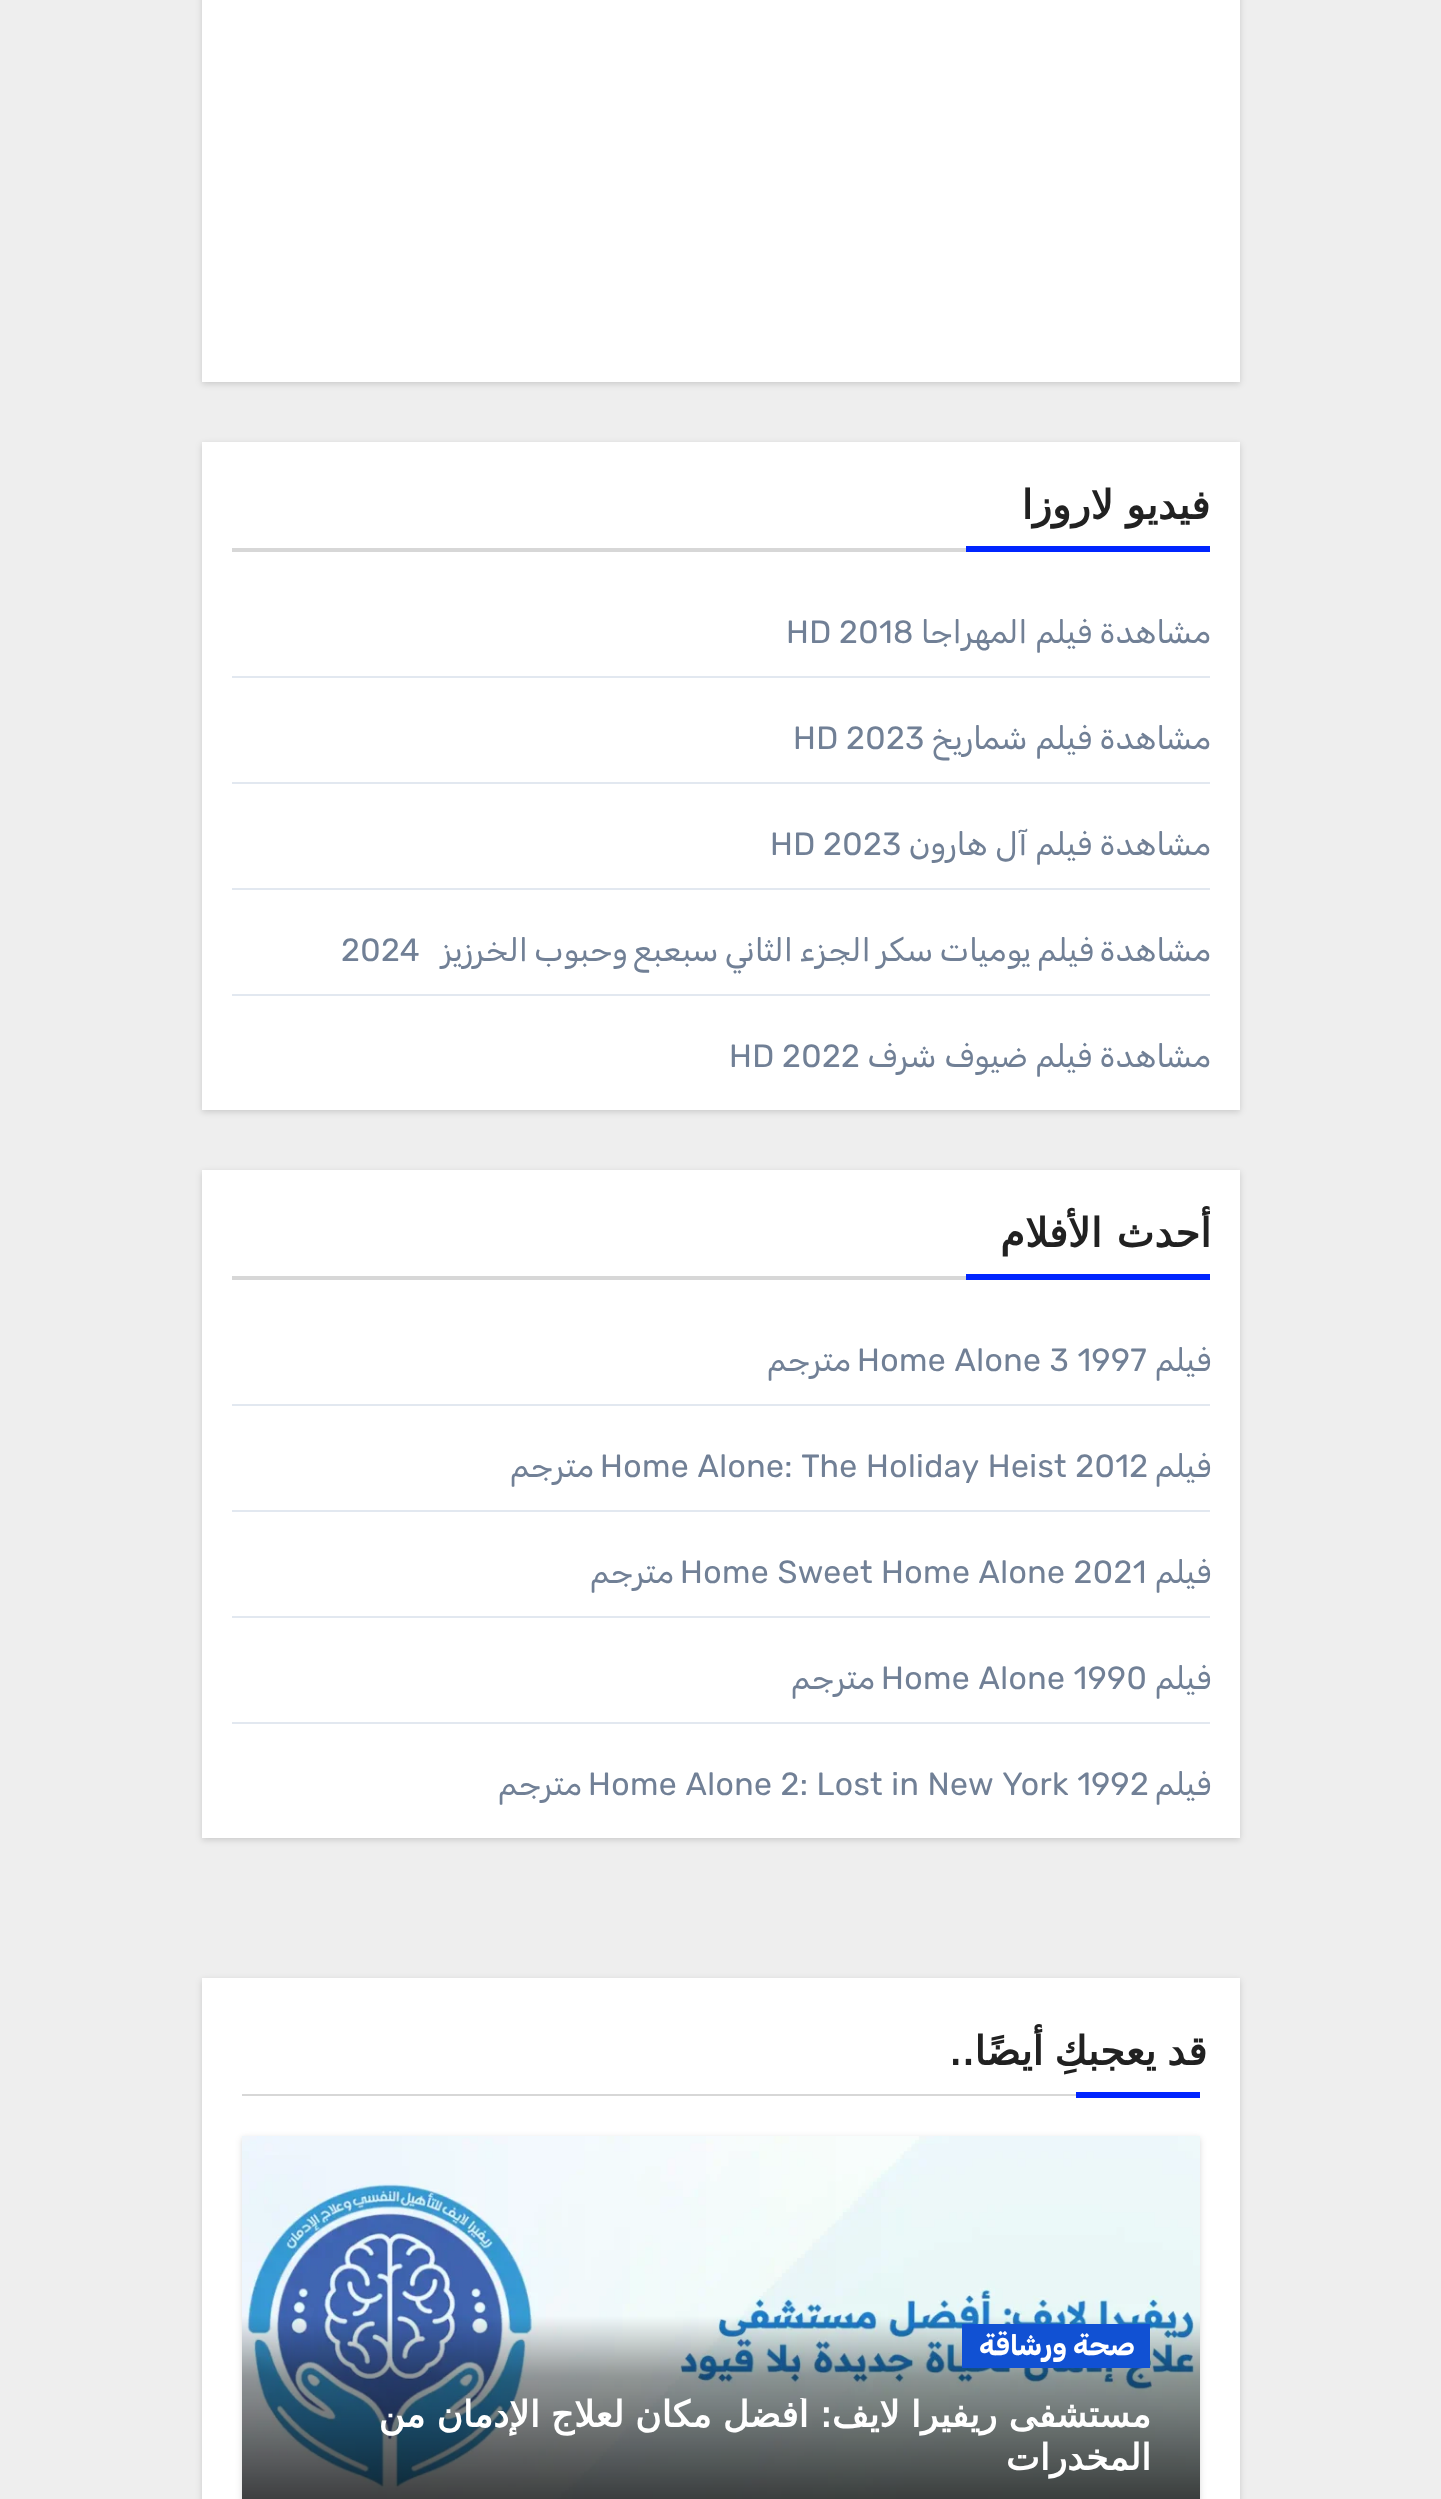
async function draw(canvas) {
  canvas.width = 1441;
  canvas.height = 2499;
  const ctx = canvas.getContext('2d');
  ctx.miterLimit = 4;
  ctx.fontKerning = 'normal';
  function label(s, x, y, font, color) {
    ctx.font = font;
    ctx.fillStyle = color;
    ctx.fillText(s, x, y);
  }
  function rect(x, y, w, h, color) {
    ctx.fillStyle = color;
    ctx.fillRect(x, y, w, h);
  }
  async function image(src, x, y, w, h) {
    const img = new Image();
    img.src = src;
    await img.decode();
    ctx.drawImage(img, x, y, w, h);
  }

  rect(0, 0, 1441, 2499, '#eee');
  ctx.fillStyle = '#00000026';
  ctx.filter = 'blur(3px)';
  ctx.beginPath();
  ctx.rect(202, -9, 1038, 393);
  ctx.fill();
  ctx.filter = 'none';
  rect(202, 0, 1038, 382, '#fff');
  ctx.fillStyle = '#00000026';
  ctx.filter = 'blur(3px)';
  ctx.beginPath();
  ctx.rect(202, 444, 1038, 668);
  ctx.fill();
  ctx.filter = 'none';
  rect(202, 442, 1038, 668, '#fff');
  rect(232, 548, 734, 4, '#d7d7d7');
  ctx.direction = 'rtl';
  label('فيديو لاروزا', 1210, 519, 'bold 40px DejaVu Sans', '#212121');
  rect(966, 546, 244, 6, '#0025ff');
  rect(232, 676, 978, 2, '#e2e8f0');
  ctx.letterSpacing = '0.4px';
  label('مشاهدة فيلم المهراجا', 1211, 643, '300 32px Rubik', '#718096');
  ctx.direction = 'ltr';
  label('2018', 839, 643, '300 32px Rubik', '#718096');
  label('HD', 786, 643, '300 32px Rubik', '#718096');
  rect(232, 782, 978, 2, '#e2e8f0');
  ctx.direction = 'rtl';
  label('مشاهدة فيلم شماريخ', 1211, 749, '300 32px Rubik', '#718096');
  ctx.direction = 'ltr';
  label('2023', 846, 749, '300 32px Rubik', '#718096');
  label('HD', 793, 749, '300 32px Rubik', '#718096');
  rect(232, 888, 978, 2, '#e2e8f0');
  ctx.direction = 'rtl';
  label('مشاهدة فيلم آل هارون', 1211, 855, '300 32px Rubik', '#718096');
  ctx.direction = 'ltr';
  label('2023', 823, 855, '300 32px Rubik', '#718096');
  label('HD', 770, 855, '300 32px Rubik', '#718096');
  rect(232, 994, 978, 2, '#e2e8f0');
  label('2024', 341, 961, '300 32px Rubik', '#718096');
  ctx.save();
  ctx.beginPath();
  ctx.rect(232, 910, 978, 84);
  ctx.clip();
  ctx.wordSpacing = '-1.75px';
  ctx.direction = 'rtl';
  label('مشاهدة فيلم يوميات سكر الجزء الثاني سبعبع وحبوب الخرزيز', 1211, 961, '300 32px Rubik', '#718096');
  ctx.restore();
  ctx.direction = 'rtl';
  label('مشاهدة فيلم ضيوف شرف', 1211, 1067, '300 32px Rubik', '#718096');
  ctx.direction = 'ltr';
  label('2022', 782, 1067, '300 32px Rubik', '#718096');
  label('HD', 729, 1067, '300 32px Rubik', '#718096');
  ctx.fillStyle = '#00000026';
  ctx.filter = 'blur(3px)';
  ctx.beginPath();
  ctx.rect(202, 1172, 1038, 668);
  ctx.fill();
  ctx.filter = 'none';
  rect(202, 1170, 1038, 668, '#fff');
  rect(232, 1276, 734, 4, '#d7d7d7');
  ctx.letterSpacing = '0px';
  ctx.wordSpacing = '2px';
  ctx.direction = 'rtl';
  label('أحدث الأفلام', 1211, 1247, 'bold 40px DejaVu Sans', '#212121');
  rect(966, 1274, 244, 6, '#0025ff');
  rect(232, 1404, 978, 2, '#e2e8f0');
  ctx.letterSpacing = '0.4px';
  ctx.wordSpacing = '0px';
  label('فيلم', 1211, 1371, '300 32px Rubik', '#718096');
  ctx.direction = 'ltr';
  label('Home Alone 3 1997', 857, 1371, '300 32px Rubik', '#718096');
  ctx.direction = 'rtl';
  label('مترجم', 851, 1371, '300 32px Rubik', '#718096');
  rect(232, 1510, 978, 2, '#e2e8f0');
  label('فيلم', 1211, 1477, '300 32px Rubik', '#718096');
  ctx.direction = 'ltr';
  label('Home Alone: The Holiday Heist 2012', 600, 1477, '300 32px Rubik', '#718096');
  ctx.direction = 'rtl';
  label('مترجم', 594, 1477, '300 32px Rubik', '#718096');
  rect(232, 1616, 978, 2, '#e2e8f0');
  label('فيلم', 1211, 1583, '300 32px Rubik', '#718096');
  ctx.direction = 'ltr';
  label('Home Sweet Home Alone 2021', 680, 1583, '300 32px Rubik', '#718096');
  ctx.direction = 'rtl';
  label('مترجم', 674, 1583, '300 32px Rubik', '#718096');
  rect(232, 1722, 978, 2, '#e2e8f0');
  label('فيلم', 1211, 1689, '300 32px Rubik', '#718096');
  ctx.direction = 'ltr';
  label('Home Alone 1990', 881, 1689, '300 32px Rubik', '#718096');
  ctx.direction = 'rtl';
  label('مترجم', 875, 1689, '300 32px Rubik', '#718096');
  label('فيلم', 1211, 1795, '300 32px Rubik', '#718096');
  ctx.direction = 'ltr';
  label('Home Alone 2: Lost in New York 1992', 588, 1795, '300 32px Rubik', '#718096');
  ctx.direction = 'rtl';
  label('مترجم', 582, 1795, '300 32px Rubik', '#718096');
  ctx.fillStyle = '#00000026';
  ctx.filter = 'blur(3px)';
  ctx.beginPath();
  ctx.rect(202, 1980, 1038, 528);
  ctx.fill();
  ctx.filter = 'none';
  rect(202, 1978, 1038, 521, '#fff');
  rect(242, 2094, 834, 2, '#d7d7d7');
  ctx.letterSpacing = '0px';
  ctx.wordSpacing = '-2px';
  label('قد يعجبكِ أيضًا..', 1207, 2065, 'bold 40px DejaVu Sans', '#212121');
  rect(1076, 2092, 124, 6, '#0025ff');
  ctx.fillStyle = '#00000026';
  ctx.filter = 'blur(3px)';
  ctx.beginPath();
  ctx.rect(242, 2138, 958, 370);
  ctx.fill();
  ctx.filter = 'none';
  await image('assets/img1.png', 242, 2136, 958, 363);
  rect(962, 2324, 188, 44, '#1151d3');
  ctx.wordSpacing = '0px';
  label('صحة ورشاقة', 1135, 2355, 'bold 28px Rubik', '#fff');
  ctx.save();
  ctx.beginPath();
  ctx.rect(292, 2398, 858, 88);
  ctx.clip();
  ctx.wordSpacing = '-0.25px';
  label('مستشفى ريفيرا لايف: أفضل مكان لعلاج الإدمان من', 1151, 2427, 'bold 36px DejaVu Sans', '#fff');
  ctx.restore();
  label('المخدرات', 1151, 2470, 'bold 36px DejaVu Sans', '#fff');
}

draw(document.querySelector('canvas'));
